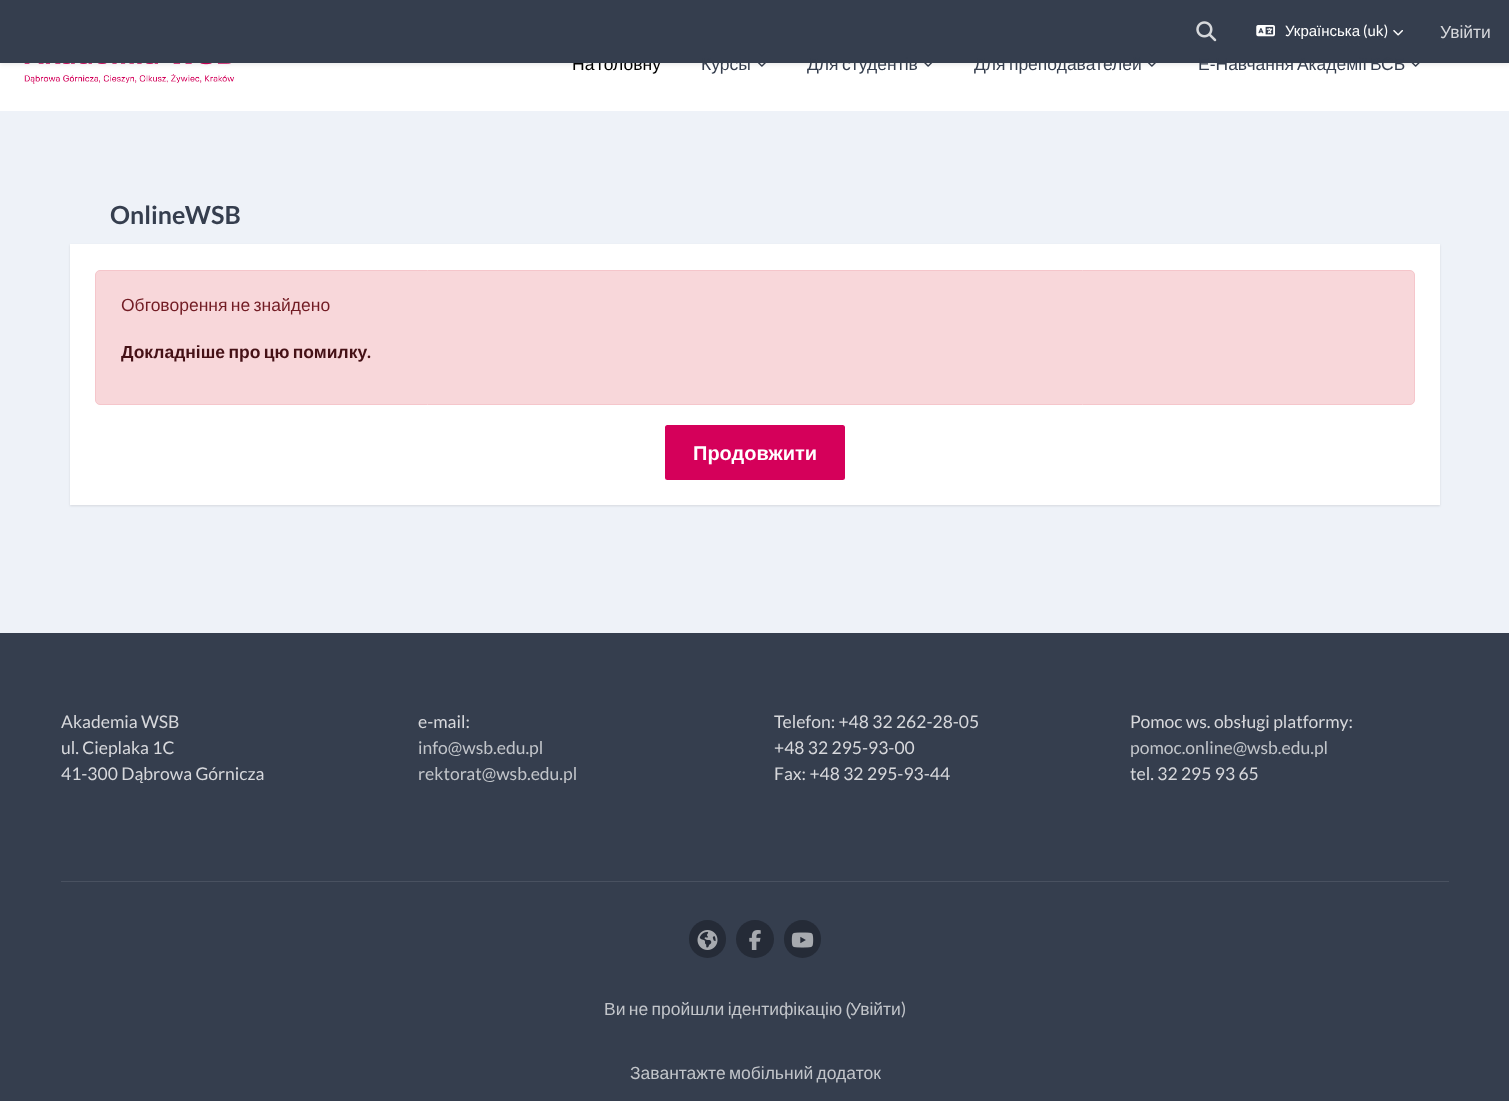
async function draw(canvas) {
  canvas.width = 1509;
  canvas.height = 1101;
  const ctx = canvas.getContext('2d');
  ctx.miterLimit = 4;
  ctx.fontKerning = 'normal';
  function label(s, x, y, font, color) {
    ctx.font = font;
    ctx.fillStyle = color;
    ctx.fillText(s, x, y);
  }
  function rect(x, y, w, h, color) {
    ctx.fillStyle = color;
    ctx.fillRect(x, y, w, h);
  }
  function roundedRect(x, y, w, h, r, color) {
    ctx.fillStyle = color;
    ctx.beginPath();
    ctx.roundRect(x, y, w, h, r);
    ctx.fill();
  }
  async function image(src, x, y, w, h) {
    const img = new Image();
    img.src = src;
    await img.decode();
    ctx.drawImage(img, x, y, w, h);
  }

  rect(0, 0, 1509, 1101, '#eef2f8');
  rect(0, 63, 1509, 48, '#fff');
  await image('assets/img4.png', 24, 63, 211, 21);
  await image('assets/img5.png', 757, 63, 9, 4);
  await image('assets/img6.png', 924, 63, 9, 4);
  await image('assets/img5.png', 1147, 63, 9, 4);
  await image('assets/img7.png', 1411, 63, 9, 4);
  ctx.fillStyle = '#0000001a';
  ctx.filter = 'blur(2.5px)';
  ctx.beginPath();
  ctx.rect(0, 1, 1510, 63);
  ctx.fill();
  ctx.filter = 'none';
  ctx.wordSpacing = '-1.5px';
  label('На головну', 572, 70, '17.5px Liberation Sans', '#000');
  rect(0, 0, 1509, 63, '#353e4e');
  await image('assets/img1.png', 1196, 21, 21, 21);
  await image('assets/img2.png', 1256, 25, 19, 12);
  ctx.wordSpacing = '-1px';
  label('Українська ', 1285, 36, '15px Liberation Sans', '#fff');
  ctx.wordSpacing = '0px';
  label('(uk)', 1363, 36, '15px Lato', '#fff');
  await image('assets/img3.png', 1393, 30, 10, 6);
  label('Увійти', 1440, 38, '17.5px Liberation Sans', '#d7d8dc');
  label('Курсы', 701, 70, '17.5px Liberation Sans', '#353e4e');
  ctx.wordSpacing = '-1.5px';
  label('Для студентів', 807, 70, '17.5px Liberation Sans', '#353e4e');
  label('Для преподавателей', 974, 70, '17.5px Liberation Sans', '#353e4e');
  ctx.wordSpacing = '-2px';
  label('E-Навчання Академії ВСБ', 1198, 70, '17.5px Liberation Sans', '#353e4e');
  ctx.wordSpacing = '0px';
  label('OnlineWSB', 110, 224, 'bold 25px Lato', '#353e4e');
  ctx.fillStyle = '#0000001a';
  ctx.filter = 'blur(1px)';
  ctx.beginPath();
  ctx.rect(70, 245, 1370, 261);
  ctx.fill();
  ctx.filter = 'none';
  rect(70, 244, 1370, 261, '#fff');
  ctx.fillStyle = '#f8d7da';
  ctx.beginPath();
  ctx.roundRect(95.5, 270.5, 1319, 134, 4.5);
  ctx.fill();
  ctx.strokeStyle = '#f5c6cb';
  ctx.stroke();
  ctx.wordSpacing = '-1.5px';
  label('Обговорення не знайдено', 121, 311, '17.5px Liberation Sans', '#721c24');
  label('Докладніше про цю помилку', 121, 358, 'bold 17.5px Liberation Sans', '#451116');
  ctx.wordSpacing = '0px';
  label('.', 367, 358, 'bold 17.5px Lato', '#451116');
  ctx.fillStyle = '#d5005a';
  ctx.beginPath();
  ctx.roundRect(666.5, 426.5, 177, 52, 1);
  ctx.fill();
  ctx.strokeStyle = '#d5005a';
  ctx.lineWidth = 3;
  ctx.stroke();
  label('Продовжити', 693, 460, 'bold 20px Liberation Sans', '#fff');
  rect(0, 633, 1509, 468, '#353e4e');
  label('Akademia WSB', 61, 728, '17.5px Lato', '#d7d8dc');
  label('ul. Cieplaka 1C', 61, 754, '17.5px Lato', '#d7d8dc');
  label('41-300 Dąbrowa Górnicza', 61, 780, '17.5px Lato', '#d7d8dc');
  label('e-mail:', 418, 728, '17.5px Lato', '#d7d8dc');
  label('info@wsb.edu.pl', 418, 754, '17.5px Lato', '#c2c5ca');
  label('rektorat@wsb.edu.pl', 418, 780, '17.5px Lato', '#c2c5ca');
  label('Telefon: +48 32 262-28-05', 774, 728, '17.5px Lato', '#d7d8dc');
  label('+48 32 295-93-00', 774, 754, '17.5px Lato', '#d7d8dc');
  label('Fax: +48 32 295-93-44', 774, 780, '17.5px Lato', '#d7d8dc');
  label('Pomoc ws. obsługi platformy:', 1130, 728, '17.5px Lato', '#d7d8dc');
  label('pomoc.online@wsb.edu.pl', 1130, 754, '17.5px Lato', '#c2c5ca');
  label('tel. 32 295 93 65', 1130, 780, '17.5px Lato', '#d7d8dc');
  rect(61, 881, 1388, 1, '#495160');
  roundedRect(689, 920, 37, 38, 18.5, '#252b37');
  await image('assets/img8.png', 697, 930, 21, 20);
  ctx.beginPath();
  ctx.arc(755, 939, 19, 0, 2 * Math.PI);
  ctx.fill();
  await image('assets/img9.png', 749, 930, 12, 20);
  roundedRect(784, 920, 37, 38, 18.5, '#252b37');
  await image('assets/img10.png', 791, 932, 23, 16);
  ctx.wordSpacing = '-1.5px';
  label('Ви не пройшли ідентифікацію (', 604, 1015, '17.5px Liberation Sans', '#c2c5ca');
  ctx.wordSpacing = '0px';
  label('Увійти', 850, 1015, '17.5px Liberation Sans', '#c2c5ca');
  label(')', 901, 1015, '17.5px Lato', '#c2c5ca');
  ctx.wordSpacing = '-1.5px';
  label('Завантажте мобільний додаток', 630, 1079, '17.5px Liberation Sans', '#c2c5ca');
}

draw(document.querySelector('canvas'));
